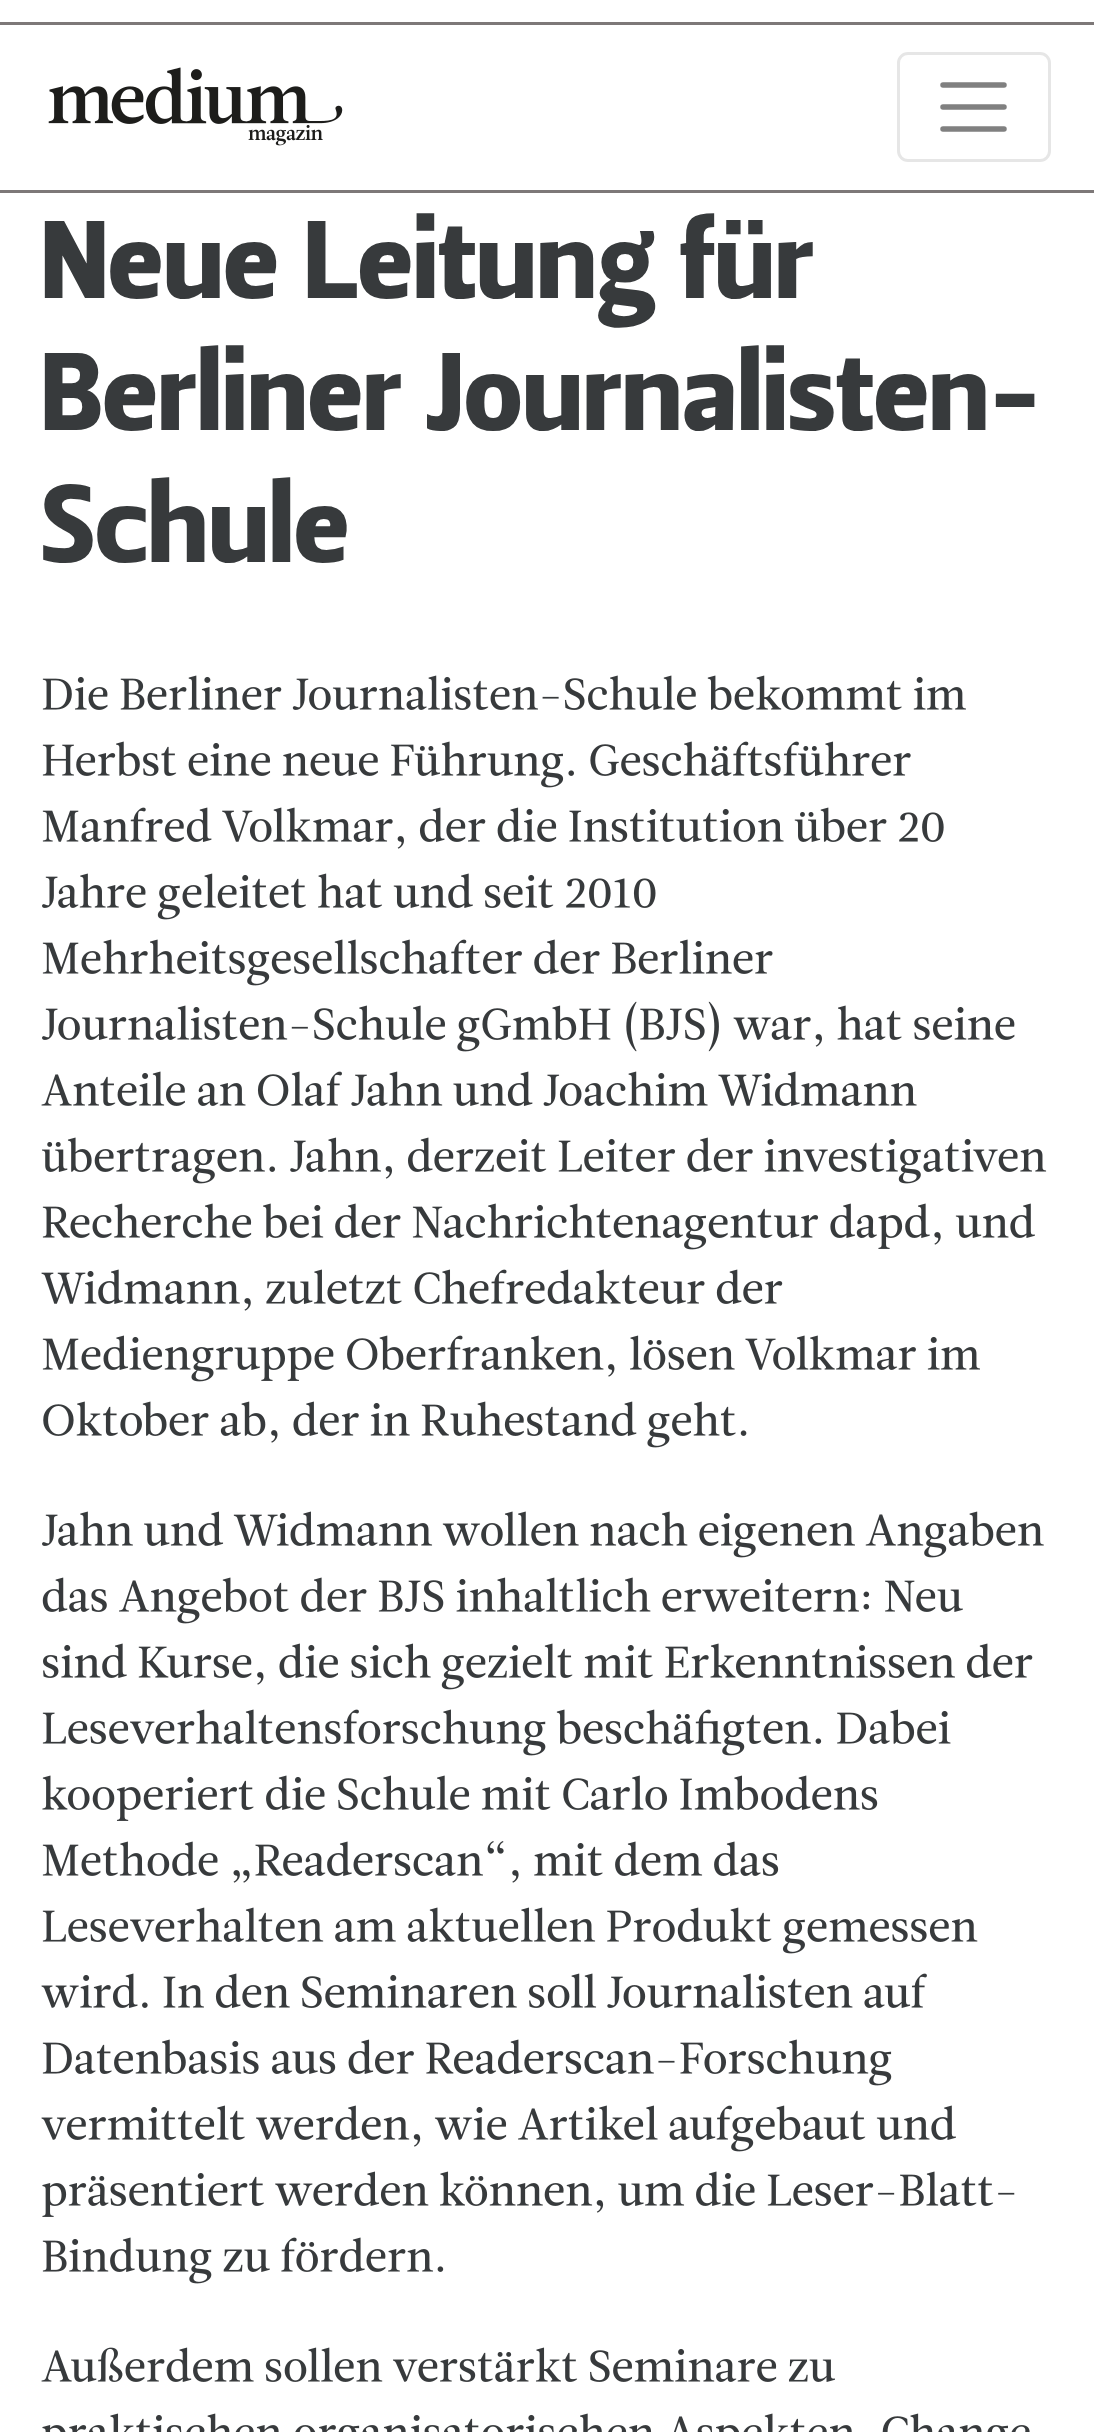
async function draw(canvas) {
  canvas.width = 1094;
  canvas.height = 2432;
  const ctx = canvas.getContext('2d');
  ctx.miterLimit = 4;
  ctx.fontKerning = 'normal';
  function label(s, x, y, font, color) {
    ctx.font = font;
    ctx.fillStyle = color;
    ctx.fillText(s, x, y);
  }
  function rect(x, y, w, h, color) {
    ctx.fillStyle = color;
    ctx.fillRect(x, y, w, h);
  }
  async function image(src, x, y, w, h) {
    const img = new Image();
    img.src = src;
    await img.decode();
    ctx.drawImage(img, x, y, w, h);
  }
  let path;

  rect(0, 0, 1094, 2432, '#fff');
  rect(0, 22, 1094, 3, '#7d7878');
  rect(0, 190, 1094, 3, '#7d7878');
  await image('assets/img1.png', 48, 67, 295, 79);
  ctx.beginPath();
  ctx.roundRect(898.5, 53.5, 151, 107, 9.5);
  ctx.strokeStyle = '#e6e6e6';
  ctx.lineWidth = 3;
  ctx.stroke();
  path = new Path2D('M943 85H1004M943 107H1004M943 129H1004');
  ctx.strokeStyle = '#808080';
  ctx.lineWidth = 5.5;
  ctx.lineCap = 'round';
  ctx.stroke(path);
  label('Neue Leitung für', 41, 298, '110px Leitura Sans', '#373a3c');
  label('Berliner Journalisten-', 41, 430, '110px Leitura Sans', '#373a3c');
  label('Schule', 41, 562, '110px Leitura Sans', '#373a3c');
  await image('assets/img2.png', 42, 675, 924, 35);
  await image('assets/img3.png', 42, 741, 869, 47);
  await image('assets/img4.png', 42, 807, 902, 42);
  await image('assets/img5.png', 42, 873, 614, 47);
  await image('assets/img6.png', 42, 939, 731, 47);
  await image('assets/img7.png', 42, 1001, 973, 51);
  await image('assets/img8.png', 41, 1071, 876, 35);
  await image('assets/img9.png', 42, 1137, 1005, 47);
  await image('assets/img10.png', 42, 1203, 993, 47);
  await image('assets/img11.png', 41, 1269, 742, 42);
  await image('assets/img12.png', 42, 1335, 938, 47);
  await image('assets/img13.png', 43, 1401, 704, 47);
  await image('assets/img14.png', 42, 1511, 1002, 47);
  await image('assets/img15.png', 42, 1577, 921, 47);
  await image('assets/img16.png', 43, 1643, 990, 47);
  await image('assets/img17.png', 42, 1709, 909, 47);
  await image('assets/img18.png', 42, 1775, 836, 46);
  await image('assets/img19.png', 42, 1841, 737, 42);
  await image('assets/img20.png', 42, 1907, 936, 47);
  await image('assets/img21.png', 41, 1973, 886, 35);
  await image('assets/img22.png', 42, 2039, 850, 47);
  await image('assets/img23.png', 41, 2105, 915, 47);
  await image('assets/img24.png', 42, 2171, 973, 46);
  await image('assets/img25.png', 42, 2237, 402, 47);
  await image('assets/img26.png', 41, 2347, 794, 35);
  await image('assets/img27.png', 42, 2413, 988, 19);
}

draw(document.querySelector('canvas'));
